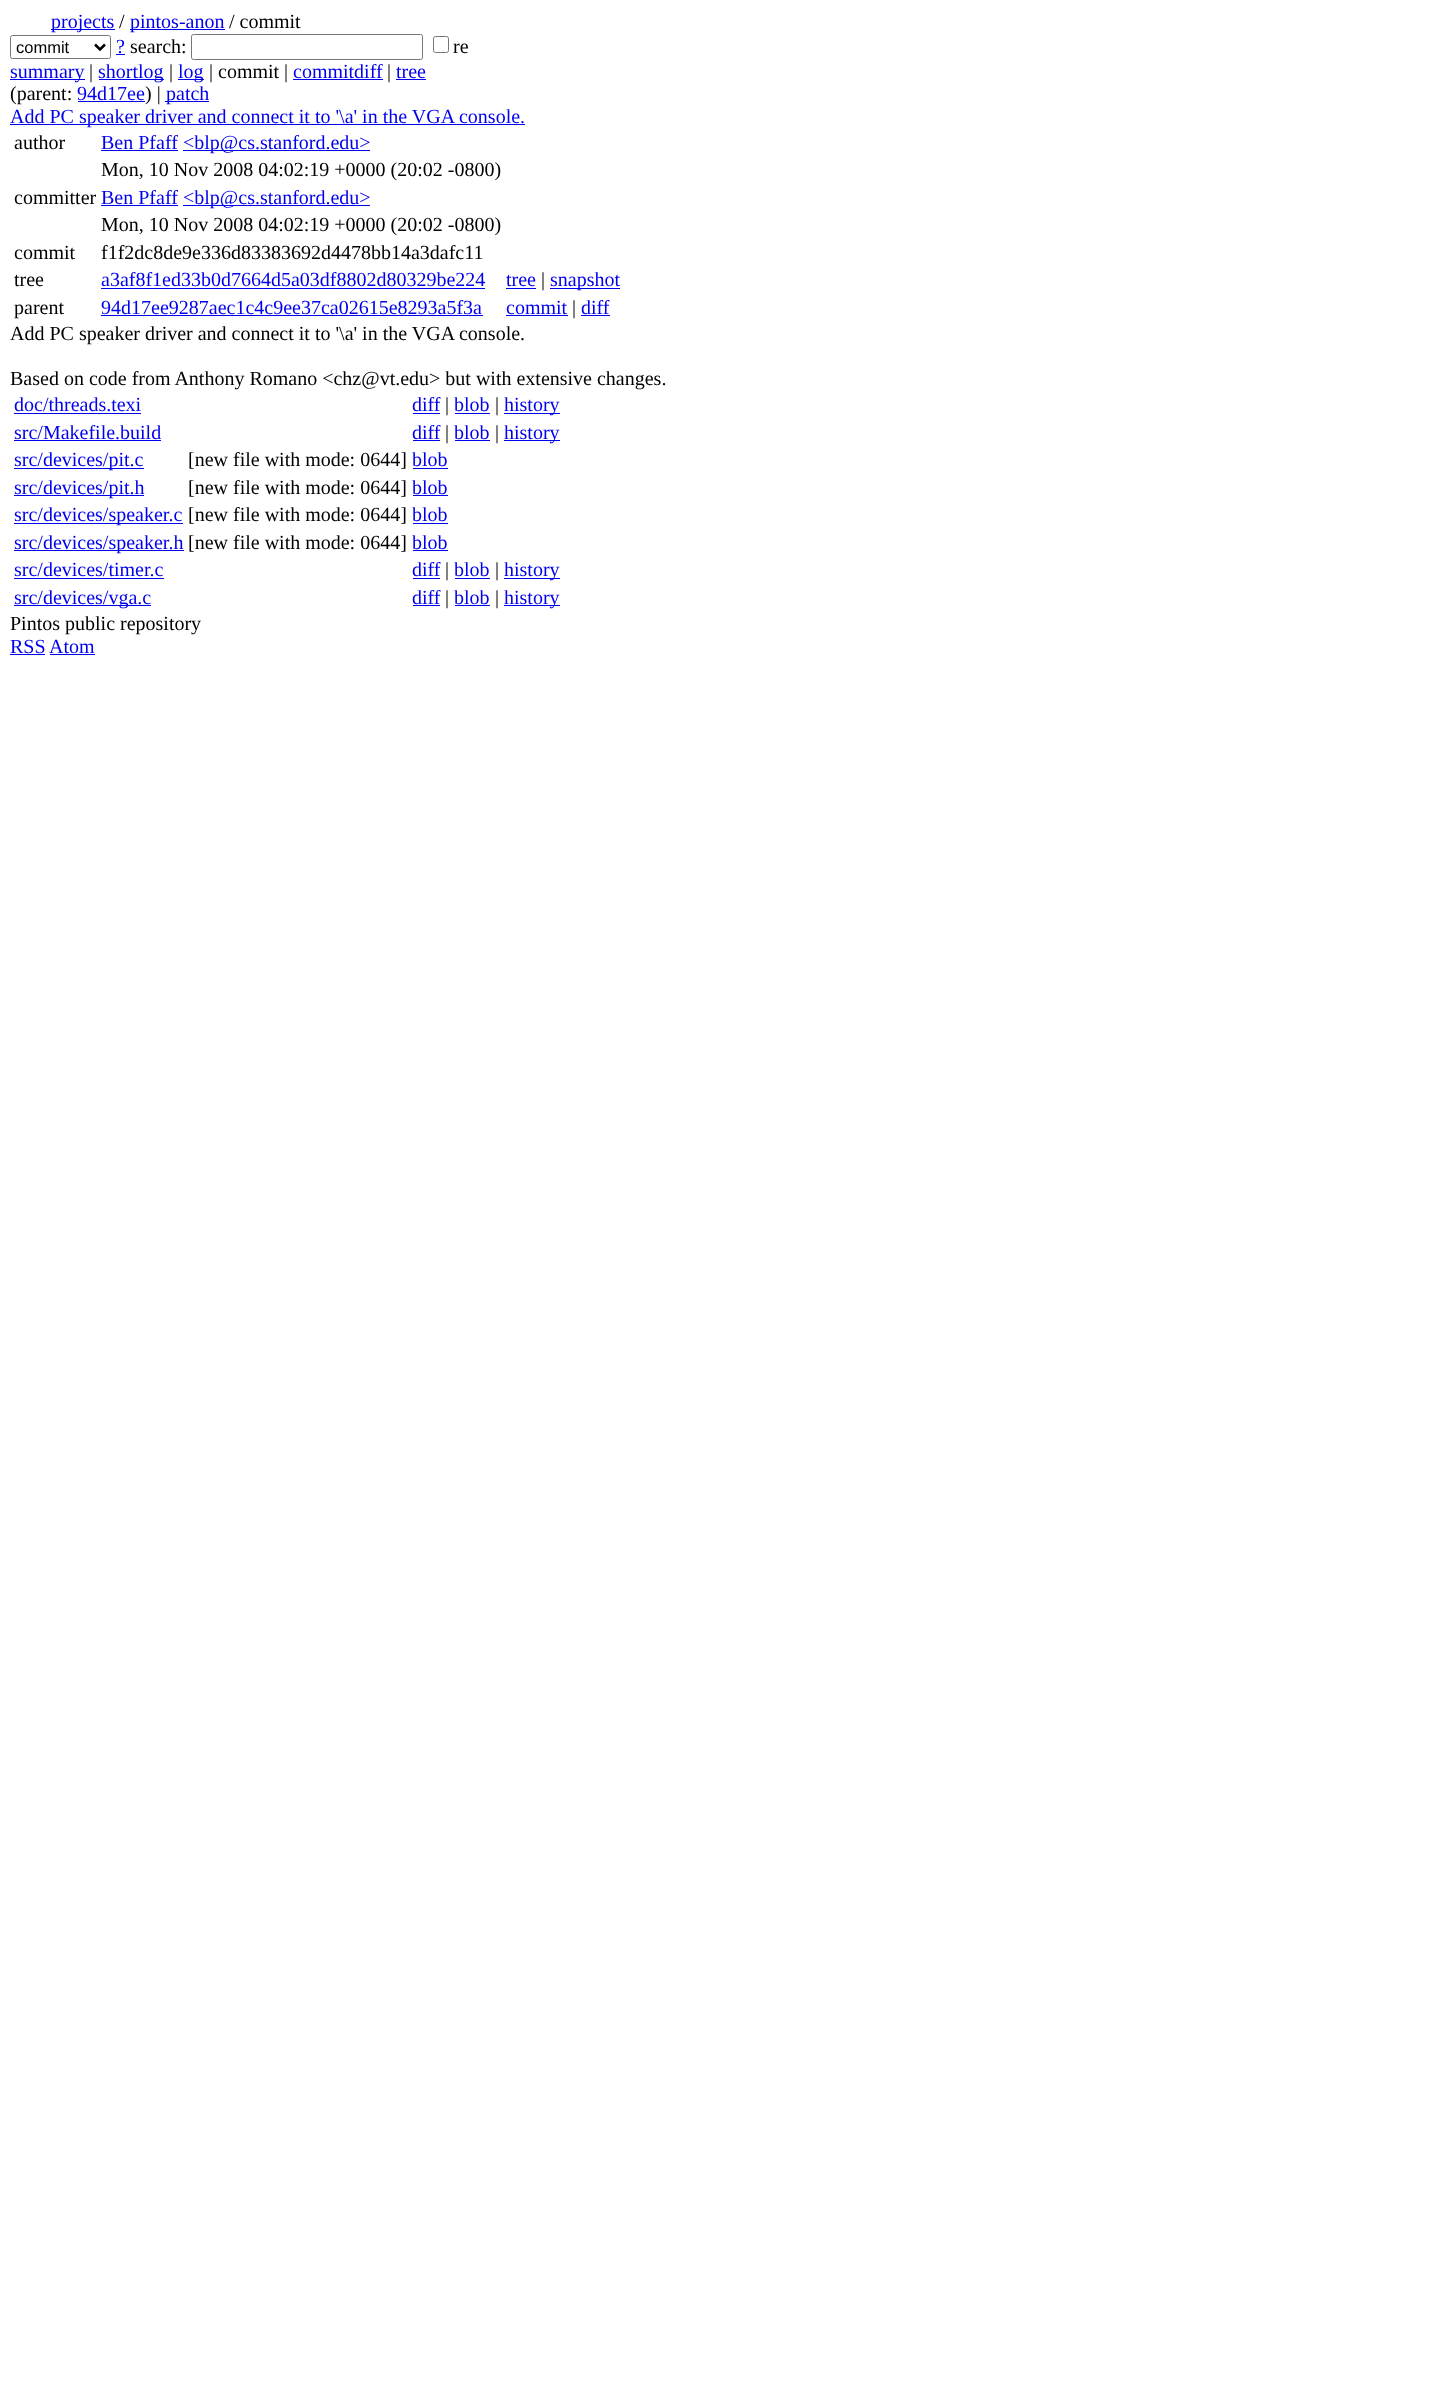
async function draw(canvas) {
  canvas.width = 1438;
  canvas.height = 2385;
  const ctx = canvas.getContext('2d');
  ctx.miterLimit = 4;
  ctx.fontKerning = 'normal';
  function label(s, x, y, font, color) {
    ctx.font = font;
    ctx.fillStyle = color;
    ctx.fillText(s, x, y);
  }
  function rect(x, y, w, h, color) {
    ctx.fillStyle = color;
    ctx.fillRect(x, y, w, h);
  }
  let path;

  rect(0, 0, 1438, 2385, '#fff');
  rect(51, 29, 64, 1, '#00e');
  label('projects', 51, 28, '20px Liberation Serif', '#00e');
  label('/', 119, 28, '20px Liberation Serif', '#000');
  rect(130, 29, 95, 1, '#00e');
  label('pintos-anon', 130, 28, '20px Liberation Serif', '#00e');
  label('/ commit', 229, 28, '20px Liberation Serif', '#000');
  ctx.beginPath();
  ctx.roundRect(10.5, 35.5, 100, 23, 2);
  ctx.strokeStyle = '#767676';
  ctx.stroke();
  path = new Path2D('M95 44.5L100 49.5L105 44.5');
  ctx.strokeStyle = '#000';
  ctx.lineWidth = 2.5;
  ctx.stroke(path);
  label('commit', 16, 53, '16.5px Liberation Sans', '#000');
  label('?', 116, 53, '20px Liberation Serif', '#00e');
  rect(116, 54, 9, 1, '#00e');
  label('search:', 130, 53, '20px Liberation Serif', '#000');
  ctx.beginPath();
  ctx.roundRect(191.5, 34.5, 231, 25, 2);
  ctx.strokeStyle = '#767676';
  ctx.lineWidth = 1;
  ctx.stroke();
  ctx.beginPath();
  ctx.roundRect(433.5, 36.5, 15, 16, 2);
  ctx.stroke();
  label('re', 453, 53, '20px Liberation Serif', '#000');
  rect(10, 79, 75, 1, '#00e');
  label('summary', 10, 78, '20px Liberation Serif', '#00e');
  label('|', 89, 78, '20px Liberation Serif', '#000');
  rect(99, 79, 65, 1, '#00e');
  label('shortlog', 98, 78, '20px Liberation Serif', '#00e');
  label('|', 169, 78, '20px Liberation Serif', '#000');
  rect(178, 79, 26, 1, '#00e');
  label('log', 178, 78, '20px Liberation Serif', '#00e');
  label('| commit |', 209, 78, '20px Liberation Serif', '#000');
  label('commitdiff', 293, 78, '20px Liberation Serif', '#00e');
  rect(293, 79, 90, 1, '#00e');
  label('|', 387, 78, '20px Liberation Serif', '#000');
  label('tree', 396, 78, '20px Liberation Serif', '#00e');
  rect(396, 79, 30, 1, '#00e');
  label('(parent:', 10, 100, '20px Liberation Serif', '#000');
  label('94d17ee', 77, 100, '20px Liberation Serif', '#00e');
  rect(78, 101, 67, 1, '#00e');
  label(') |', 145, 100, '20px Liberation Serif', '#000');
  rect(165, 101, 44, 1, '#00e');
  label('patch', 166, 100, '20px Liberation Serif', '#00e');
  rect(10, 124, 515, 1, '#00e');
  label('Add PC speaker driver and connect it to \'\\a\' in the VGA console.', 10, 123, '20px Liberation Serif', '#00e');
  label('author', 14, 149, '20px Liberation Serif', '#000');
  label('Ben Pfaff', 101, 149, '20px Liberation Serif', '#00e');
  rect(101, 150, 77, 1, '#00e');
  rect(183, 150, 187, 1, '#00e');
  label('<blp@cs.stanford.edu>', 183, 149, '20px Liberation Serif', '#00e');
  label('Mon, 10 Nov 2008 04:02:19 +0000 (20:02 -0800)', 101, 176, '20px Liberation Serif', '#000');
  label('committer', 14, 204, '20px Liberation Serif', '#000');
  label('Ben Pfaff', 101, 204, '20px Liberation Serif', '#00e');
  rect(101, 205, 77, 1, '#00e');
  rect(183, 205, 187, 1, '#00e');
  label('<blp@cs.stanford.edu>', 183, 204, '20px Liberation Serif', '#00e');
  label('Mon, 10 Nov 2008 04:02:19 +0000 (20:02 -0800)', 101, 231, '20px Liberation Serif', '#000');
  label('commit', 14, 259, '20px Liberation Serif', '#000');
  label('f1f2dc8de9e336d83383692d4478bb14a3dafc11', 101, 259, '20px Liberation Serif', '#000');
  label('tree', 14, 286, '20px Liberation Serif', '#000');
  label('a3af8f1ed33b0d7664d5a03df8802d80329be224', 101, 286, '20px Liberation Serif', '#00e');
  rect(101, 288, 384, 1, '#00e');
  label('tree', 506, 286, '20px Liberation Serif', '#00e');
  rect(506, 288, 30, 1, '#00e');
  label('|', 541, 286, '20px Liberation Serif', '#000');
  rect(550, 288, 70, 1, '#00e');
  label('snapshot', 550, 286, '20px Liberation Serif', '#00e');
  label('parent', 14, 314, '20px Liberation Serif', '#000');
  label('94d17ee9287aec1c4c9ee37ca02615e8293a5f3a', 101, 314, '20px Liberation Serif', '#00e');
  rect(101, 315, 382, 1, '#00e');
  label('commit', 506, 314, '20px Liberation Serif', '#00e');
  rect(506, 315, 62, 1, '#00e');
  label('|', 572, 314, '20px Liberation Serif', '#000');
  label('diff', 581, 314, '20px Liberation Serif', '#00e');
  rect(581, 315, 29, 1, '#00e');
  label('Add PC speaker driver and connect it to \'\\a\' in the VGA console.', 10, 340, '20px Liberation Serif', '#000');
  label('Based on code from Anthony Romano <chz@vt.edu> but with extensive changes.', 10, 385, '20px Liberation Serif', '#000');
  label('doc/threads.texi', 14, 411, '20px Liberation Serif', '#00e');
  rect(14, 413, 127, 1, '#00e');
  label('diff', 412, 411, '20px Liberation Serif', '#00e');
  rect(413, 413, 27, 1, '#00e');
  label('|', 445, 411, '20px Liberation Serif', '#000');
  label('blob', 454, 411, '20px Liberation Serif', '#00e');
  rect(455, 413, 35, 1, '#00e');
  label('|', 495, 411, '20px Liberation Serif', '#000');
  rect(504, 413, 56, 1, '#00e');
  label('history', 504, 411, '20px Liberation Serif', '#00e');
  label('src/Makefile.build', 14, 439, '20px Liberation Serif', '#00e');
  rect(14, 440, 147, 1, '#00e');
  label('diff', 412, 439, '20px Liberation Serif', '#00e');
  rect(413, 440, 27, 1, '#00e');
  label('|', 445, 439, '20px Liberation Serif', '#000');
  label('blob', 454, 439, '20px Liberation Serif', '#00e');
  rect(455, 440, 35, 1, '#00e');
  label('|', 495, 439, '20px Liberation Serif', '#000');
  rect(504, 440, 56, 1, '#00e');
  label('history', 504, 439, '20px Liberation Serif', '#00e');
  rect(14, 468, 130, 1, '#00e');
  label('src/devices/pit.c', 14, 466, '20px Liberation Serif', '#00e');
  label('[new file with mode: 0644]', 188, 466, '20px Liberation Serif', '#000');
  label('blob', 412, 466, '20px Liberation Serif', '#00e');
  rect(413, 468, 35, 1, '#00e');
  rect(14, 495, 130, 1, '#00e');
  label('src/devices/pit.h', 14, 494, '20px Liberation Serif', '#00e');
  label('[new file with mode: 0644]', 188, 494, '20px Liberation Serif', '#000');
  label('blob', 412, 494, '20px Liberation Serif', '#00e');
  rect(413, 495, 35, 1, '#00e');
  rect(14, 523, 169, 1, '#00e');
  label('src/devices/speaker.c', 14, 521, '20px Liberation Serif', '#00e');
  label('[new file with mode: 0644]', 188, 521, '20px Liberation Serif', '#000');
  label('blob', 412, 521, '20px Liberation Serif', '#00e');
  rect(413, 523, 35, 1, '#00e');
  rect(14, 550, 170, 1, '#00e');
  label('src/devices/speaker.h', 14, 549, '20px Liberation Serif', '#00e');
  label('[new file with mode: 0644]', 188, 549, '20px Liberation Serif', '#000');
  label('blob', 412, 549, '20px Liberation Serif', '#00e');
  rect(413, 550, 35, 1, '#00e');
  label('src/devices/timer.c', 14, 576, '20px Liberation Serif', '#00e');
  rect(14, 578, 150, 1, '#00e');
  label('diff', 412, 576, '20px Liberation Serif', '#00e');
  rect(413, 578, 27, 1, '#00e');
  label('|', 445, 576, '20px Liberation Serif', '#000');
  label('blob', 454, 576, '20px Liberation Serif', '#00e');
  rect(455, 578, 35, 1, '#00e');
  label('|', 495, 576, '20px Liberation Serif', '#000');
  rect(504, 578, 56, 1, '#00e');
  label('history', 504, 576, '20px Liberation Serif', '#00e');
  rect(14, 605, 137, 1, '#00e');
  label('src/devices/vga.c', 14, 604, '20px Liberation Serif', '#00e');
  label('diff', 412, 604, '20px Liberation Serif', '#00e');
  rect(413, 605, 27, 1, '#00e');
  label('|', 445, 604, '20px Liberation Serif', '#000');
  label('blob', 454, 604, '20px Liberation Serif', '#00e');
  rect(455, 605, 35, 1, '#00e');
  label('|', 495, 604, '20px Liberation Serif', '#000');
  rect(504, 605, 56, 1, '#00e');
  label('history', 504, 604, '20px Liberation Serif', '#00e');
  label('Pintos public repository', 10, 630, '20px Liberation Serif', '#000');
  label('RSS', 10, 653, '20px Liberation Serif', '#00e');
  rect(10, 654, 35, 1, '#00e');
  label('Atom', 49, 653, '20px Liberation Serif', '#00e');
  rect(50, 654, 45, 1, '#00e');
}

draw(document.querySelector('canvas'));
